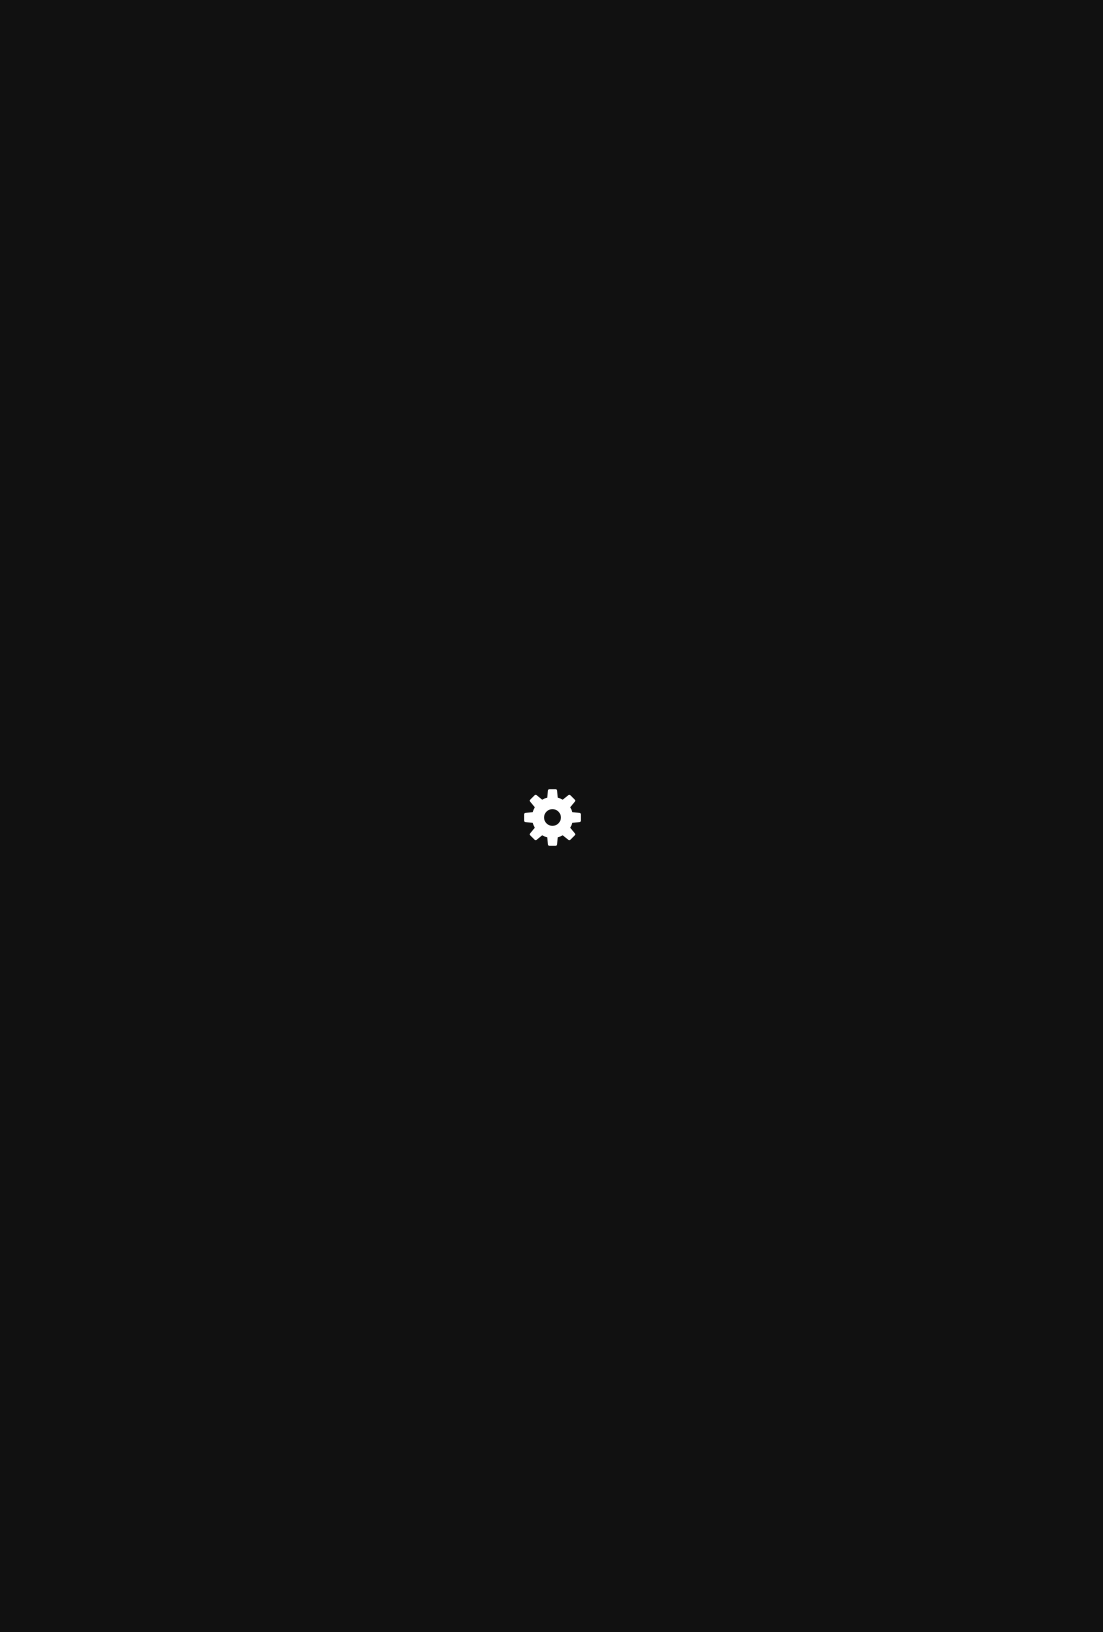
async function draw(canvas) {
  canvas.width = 1103;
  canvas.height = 1632;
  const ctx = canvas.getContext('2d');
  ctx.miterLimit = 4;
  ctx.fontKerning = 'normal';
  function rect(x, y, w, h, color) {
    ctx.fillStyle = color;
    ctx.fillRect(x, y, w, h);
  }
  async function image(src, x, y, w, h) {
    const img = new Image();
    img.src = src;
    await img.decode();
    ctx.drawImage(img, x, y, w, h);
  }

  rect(0, 0, 1103, 1632, '#111');
  await image('assets/img1.png', 524, 789, 57, 57);
}

draw(document.querySelector('canvas'));
